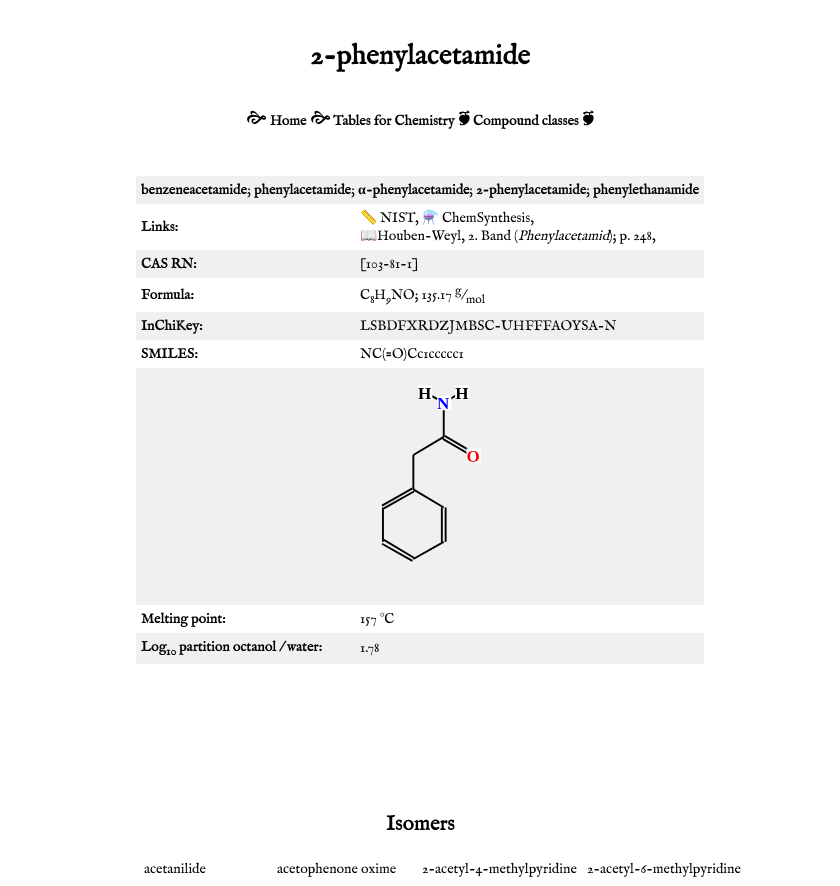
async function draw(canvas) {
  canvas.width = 840;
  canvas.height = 886;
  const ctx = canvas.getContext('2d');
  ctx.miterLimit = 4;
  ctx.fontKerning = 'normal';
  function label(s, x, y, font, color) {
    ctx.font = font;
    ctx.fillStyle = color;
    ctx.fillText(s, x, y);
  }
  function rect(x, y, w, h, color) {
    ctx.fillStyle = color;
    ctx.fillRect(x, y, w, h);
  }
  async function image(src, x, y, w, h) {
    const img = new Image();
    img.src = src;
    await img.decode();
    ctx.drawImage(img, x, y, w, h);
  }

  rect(0, 0, 840, 886, '#fff');
  label('2-phenylacetamide', 310, 64, 'bold 28px IM FELL English', '#000');
  label('🙚', 246, 125, 'bold 21px "Noto Sans Symbols 2"', '#000');
  label('Home', 270, 125, 'bold 14px IM FELL English', '#000');
  label('🙚', 310, 125, 'bold 21px "Noto Sans Symbols 2"', '#000');
  label('Tables for Chemistry', 333, 125, 'bold 14px IM FELL English', '#000');
  label('🙘', 458, 125, 'bold 21px Bona Nova', '#000');
  label('Compound classes', 473, 125, 'bold 14px IM FELL English', '#000');
  label('🙘', 582, 125, 'bold 21px Bona Nova', '#000');
  rect(136, 176, 568, 28, '#f0f0f0');
  label('benzeneacetamide', 141, 194, 'bold 14px IM FELL English', '#000');
  label(';', 247, 194, '14px IM FELL English', '#000');
  label('phenylacetamide', 254, 194, 'bold 14px IM FELL English', '#000');
  label(';', 351, 194, '14px IM FELL English', '#000');
  label('α', 358, 194, 'bold 14px Liberation Serif', '#000');
  label('-phenylacetamide', 366, 194, 'bold 14px IM FELL English', '#000');
  label(';', 469, 194, '14px IM FELL English', '#000');
  label('2-phenylacetamide', 476, 194, 'bold 14px IM FELL English', '#000');
  label(';', 586, 194, '14px IM FELL English', '#000');
  label('phenylethanamide', 593, 194, 'bold 14px IM FELL English', '#000');
  label('Links:', 141, 231, 'bold 14px IM FELL English', '#000');
  label('📏', 360, 222, '14px Noto Color Emoji', '#000');
  label('NIST,', 380, 222, '14px IM FELL English', '#000');
  label('⚗️', 422, 222, '14px Noto Color Emoji', '#000');
  label('ChemSynthesis,', 442, 222, '14px IM FELL English', '#000');
  label('📖', 360, 240, '14px Noto Color Emoji', '#000');
  label('Houben-Weyl, 2. Band (', 377, 240, '14px IM FELL English', '#000');
  label('Phenylacetamid', 518, 240, 'italic 14px IM FELL English', '#000');
  label('); p. 248,', 609, 240, '14px IM FELL English', '#000');
  rect(136, 250, 568, 28, '#f0f0f0');
  label('CAS RN:', 141, 268, 'bold 14px IM FELL English', '#000');
  label('[103-81-1]', 360, 268, '14px IM FELL English', '#000');
  label('Formula:', 141, 299, 'bold 14px IM FELL English', '#000');
  label('C', 360, 299, '14px IM FELL English', '#000');
  label('8', 370, 303, '12px IM FELL English', '#000');
  label('H', 374, 299, '14px IM FELL English', '#000');
  label('9', 386, 303, '12px IM FELL English', '#000');
  label('NO; 135.17', 391, 299, '14px IM FELL English', '#000');
  label('g', 455, 294, '12px IM FELL English', '#000');
  label('/', 461, 299, '14px IM FELL English', '#000');
  label('mol', 466, 303, '12px IM FELL English', '#000');
  rect(136, 312, 568, 28, '#f0f0f0');
  label('InChiKey:', 141, 330, 'bold 14px IM FELL English', '#000');
  label('LSBDFXRDZJMBSC-UHFFFAOYSA-N', 360, 330, '14px IM FELL English', '#000');
  label('SMILES:', 141, 358, 'bold 14px IM FELL English', '#000');
  label('NC(=O)Cc1ccccc1', 360, 358, '14px IM FELL English', '#000');
  rect(136, 368, 568, 237, '#f0f0f0');
  await image('assets/img1.png', 381, 385, 100, 177);
  label('Melting point:', 141, 623, 'bold 14px IM FELL English', '#000');
  label('157 °C', 360, 623, '14px IM FELL English', '#000');
  rect(136, 633, 568, 31, '#f0f0f0');
  label('Log', 141, 651, 'bold 14px IM FELL English', '#000');
  label('10', 166, 655, 'bold 12px IM FELL English', '#000');
  label('partition octanol / water:', 179, 651, 'bold 14px IM FELL English', '#000');
  label('1.78', 360, 652, '14px IM FELL English', '#000');
  label('Isomers', 386, 830, 'bold 21px IM FELL English', '#000');
  label('acetanilide', 144, 873, '14px IM FELL English', '#000');
  label('acetophenone oxime', 277, 873, '14px IM FELL English', '#000');
  label('2-acetyl-4-methylpyridine', 422, 873, '14px IM FELL English', '#000');
  label('2-acetyl-6-methylpyridine', 587, 873, '14px IM FELL English', '#000');
}

draw(document.querySelector('canvas'));
